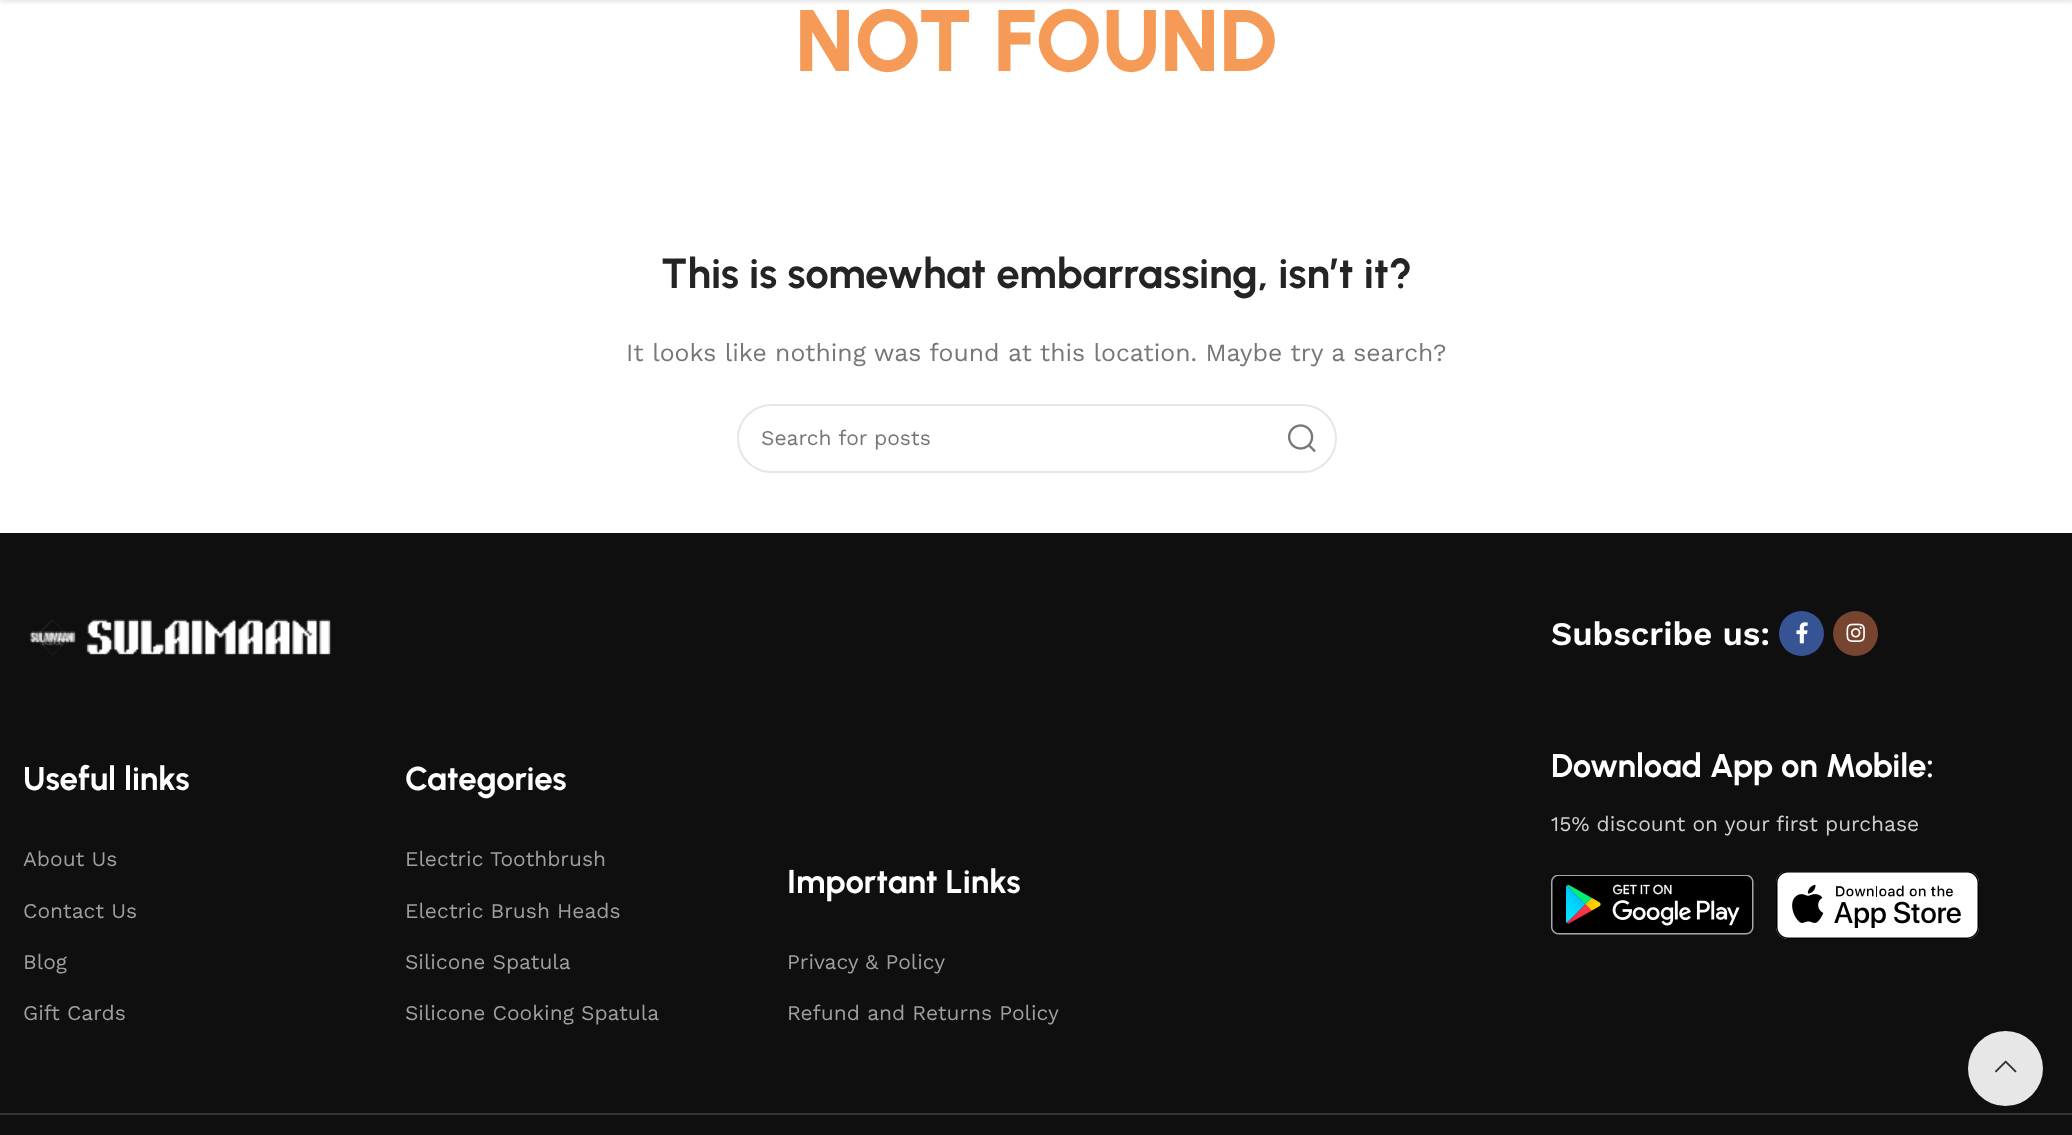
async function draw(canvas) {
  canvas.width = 2072;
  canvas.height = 1135;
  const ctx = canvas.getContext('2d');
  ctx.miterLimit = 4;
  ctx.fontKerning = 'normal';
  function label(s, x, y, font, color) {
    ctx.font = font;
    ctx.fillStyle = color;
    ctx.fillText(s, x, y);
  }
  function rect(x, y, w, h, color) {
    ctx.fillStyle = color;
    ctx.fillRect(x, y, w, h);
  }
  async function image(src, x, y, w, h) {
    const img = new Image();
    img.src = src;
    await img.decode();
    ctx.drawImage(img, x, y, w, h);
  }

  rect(0, 0, 2072, 1135, '#fff');
  ctx.fillStyle = '#0000001a';
  ctx.filter = 'blur(2px)';
  ctx.beginPath();
  ctx.rect(0, -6, 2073, 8);
  ctx.fill();
  ctx.filter = 'none';
  label('NOT FOUND', 795, 71, '800 87px Urbanist', '#f59a57');
  label('This is somewhat embarrassing, isn’t it?', 661, 288, 'bold 42px Urbanist', '#242424');
  label('It looks like nothing was found at this location. Maybe try a search?', 626, 361, '24.75px Work Sans', '#767676');
  ctx.beginPath();
  ctx.roundRect(738, 405, 598, 67, 33.5);
  ctx.strokeStyle = '#e6e6e6';
  ctx.lineWidth = 2;
  ctx.stroke();
  label('Search for posts', 761, 445, '21px Work Sans', '#767676');
  await image('assets/img1.png', 1288, 424, 28, 28);
  rect(0, 533, 2072, 602, '#0f0f0f');
  label('Subscribe us:', 1551, 645, '600 33px Work Sans', '#fff');
  ctx.fillStyle = '#365493';
  ctx.beginPath();
  ctx.arc(1801.5, 633.5, 22.5, 0, 2 * Math.PI);
  ctx.fill();
  await image('assets/img2.png', 1796, 622, 12, 22);
  ctx.fillStyle = '#774430';
  ctx.beginPath();
  ctx.arc(1855.5, 633.5, 22.5, 0, 2 * Math.PI);
  ctx.fill();
  await image('assets/img3.png', 1846, 623, 19, 19);
  label('Download App on Mobile:', 1551, 777, 'bold 33px Urbanist', '#fff');
  label('15% discount on your first purchase', 1551, 831, '21px Work Sans', '#cfcfcf');
  await image('assets/img4.png', 1551, 875, 203, 60);
  await image('assets/img5.png', 1776, 872, 203, 67);
  await image('assets/img6.png', 29, 619, 302, 37);
  label('Useful links', 23, 790, 'bold 33px Urbanist', '#fff');
  label('About Us', 23, 866, '21px Work Sans', '#9f9f9f');
  label('Contact Us', 23, 918, '21px Work Sans', '#9f9f9f');
  label('Blog', 23, 969, '21px Work Sans', '#9f9f9f');
  label('Gift Cards', 23, 1020, '21px Work Sans', '#9f9f9f');
  label('Categories', 405, 790, 'bold 33px Urbanist', '#fff');
  label('Electric Toothbrush', 405, 866, '21px Work Sans', '#9f9f9f');
  label('Electric Brush Heads', 405, 918, '21px Work Sans', '#9f9f9f');
  label('Silicone Spatula', 405, 969, '21px Work Sans', '#9f9f9f');
  label('Silicone Cooking Spatula', 405, 1020, '21px Work Sans', '#9f9f9f');
  label('Important Links', 787, 893, 'bold 33px Urbanist', '#fff');
  label('Privacy & Policy', 787, 969, '21px Work Sans', '#9f9f9f');
  label('Refund and Returns Policy', 787, 1020, '21px Work Sans', '#9f9f9f');
  rect(0, 1113, 2072, 2, '#333');
  ctx.fillStyle = '#e7e7e7';
  ctx.beginPath();
  ctx.arc(2005.5, 1068.5, 37.5, 0, 2 * Math.PI);
  ctx.fill();
  await image('assets/img7.png', 1995, 1060, 22, 13);
}

draw(document.querySelector('canvas'));
